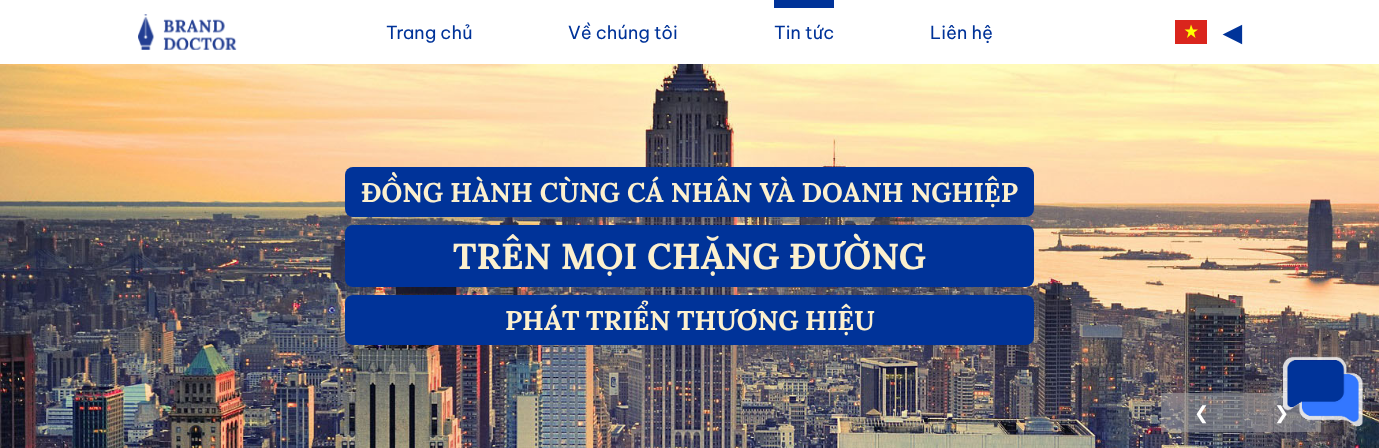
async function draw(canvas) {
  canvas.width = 1379;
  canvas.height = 448;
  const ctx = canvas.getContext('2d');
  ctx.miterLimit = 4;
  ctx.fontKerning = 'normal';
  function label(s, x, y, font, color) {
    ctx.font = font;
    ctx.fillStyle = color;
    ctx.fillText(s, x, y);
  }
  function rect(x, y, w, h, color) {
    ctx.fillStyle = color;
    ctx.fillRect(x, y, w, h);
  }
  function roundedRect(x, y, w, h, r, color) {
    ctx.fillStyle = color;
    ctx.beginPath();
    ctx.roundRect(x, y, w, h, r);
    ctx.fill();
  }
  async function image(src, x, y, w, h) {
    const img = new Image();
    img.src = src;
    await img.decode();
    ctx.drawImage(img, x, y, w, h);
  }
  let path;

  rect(0, 0, 1379, 448, '#fff');
  await image('assets/img1.png', 138, 14, 99, 36);
  label('Trang chủ', 386, 39, '18px Be Vietnam Pro', '#039');
  label('Về chúng tôi', 568, 39, '18px Be Vietnam Pro', '#039');
  rect(774, 0, 60, 8, '#039');
  label('Tin tức', 774, 39, '18px Be Vietnam Pro', '#039');
  label('Liên hệ', 930, 39, '18px Be Vietnam Pro', '#039');
  rect(1175, 20, 32, 24, '#da251d');
  ctx.fillStyle = '#ff0';
  path = new Path2D('M1195.5 38L1191 34.5L1187 38L1188.5 32.5L1184.5 29.5H1189.5L1191 24.5L1193 29.5H1198L1194 32.5Z');
  ctx.fill(path, 'evenodd');
  label('◀', 1223, 41, 'bold 24px DejaVu Sans', '#039');
  await image('assets/img2.png', 0, 64, 1379, 384);
  roundedRect(345, 167, 689, 50, 8, '#039');
  label('ĐỒNG HÀNH CÙNG CÁ NHÂN VÀ DOANH NGHIỆP', 361, 202, 'bold 27px Lora', '#fcf0ce');
  roundedRect(345, 225, 689, 62, 8, '#039');
  label('TRÊN MỌI CHẶNG ĐƯỜNG', 453, 269, 'bold 36px Lora', '#fcf0ce');
  roundedRect(345, 295, 689, 50, 8, '#039');
  ctx.wordSpacing = '-0.5px';
  label('PHÁT TRIỂN THƯƠNG HIỆU', 505, 330, 'bold 27px Lora', '#fcf0ce');
  rect(1161, 393, 80, 39, '#aaaaaa87');
  ctx.wordSpacing = '0px';
  label('❮', 1194, 419, '18px DejaVu Sans', '#fff');
  rect(1241, 393, 80, 39, '#aaaaaa87');
  label('❯', 1274, 419, '18px DejaVu Sans', '#fff');
  await image('assets/img3.png', 1283, 356, 80, 71);
}

draw(document.querySelector('canvas'));
